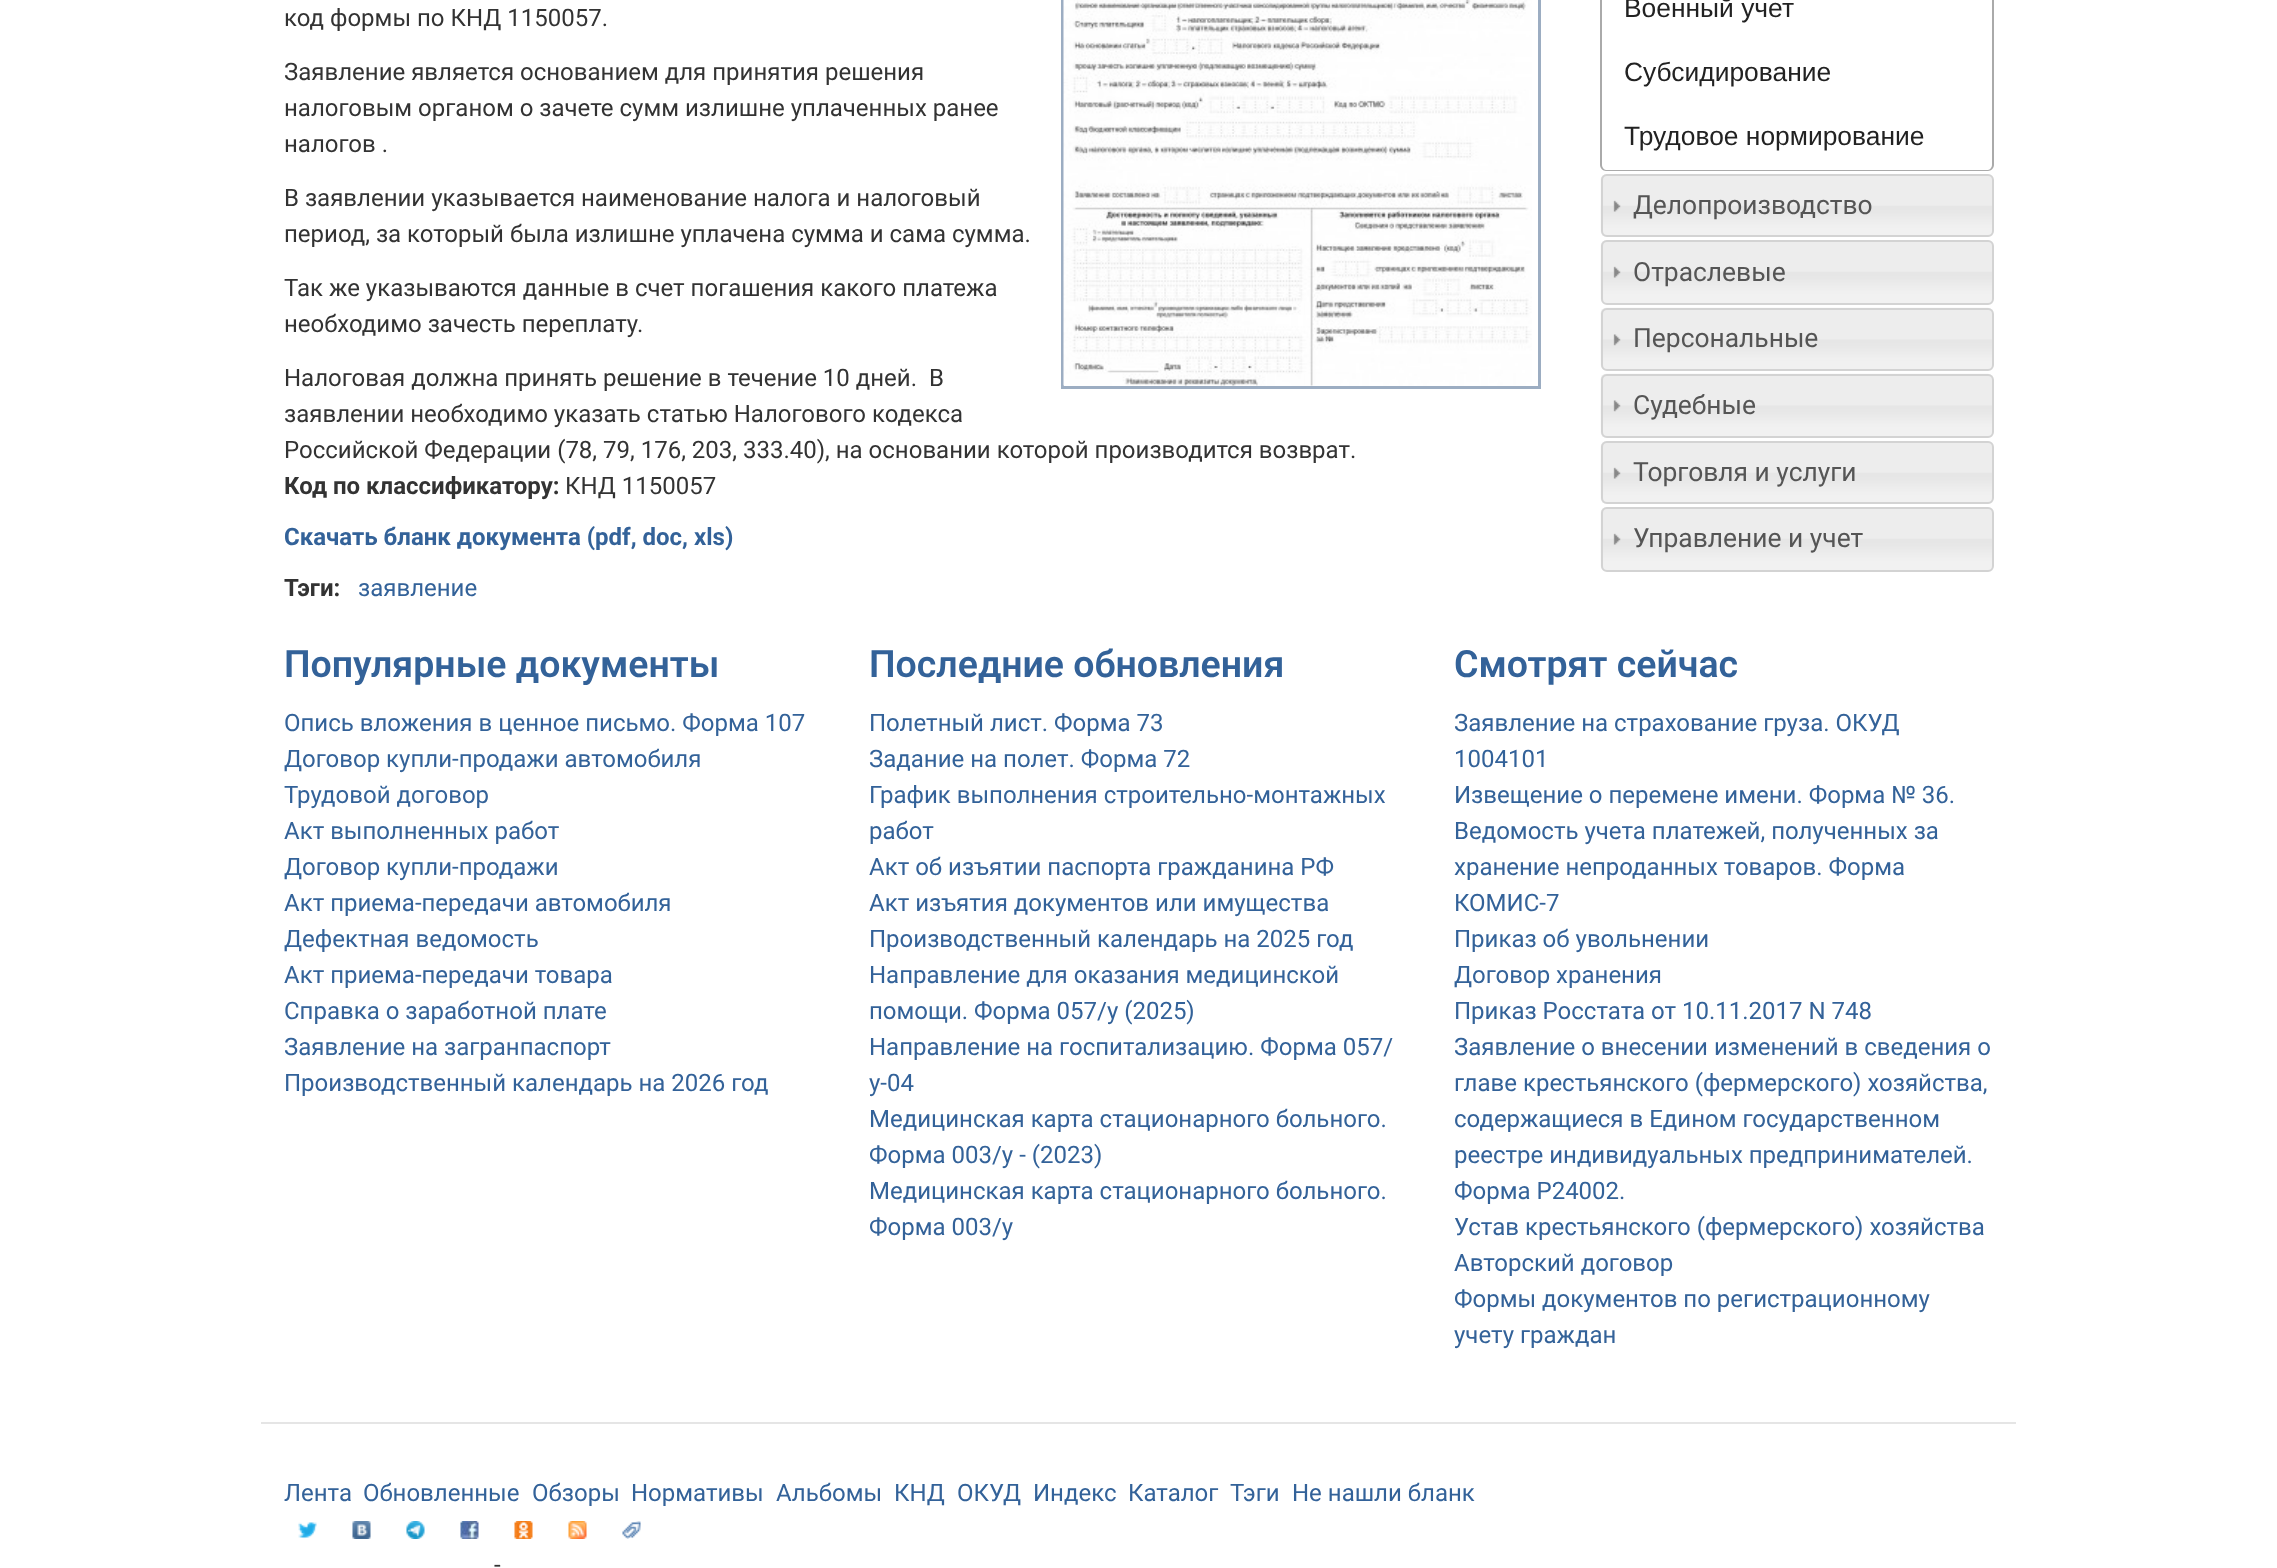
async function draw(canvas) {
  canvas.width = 2277;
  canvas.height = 1568;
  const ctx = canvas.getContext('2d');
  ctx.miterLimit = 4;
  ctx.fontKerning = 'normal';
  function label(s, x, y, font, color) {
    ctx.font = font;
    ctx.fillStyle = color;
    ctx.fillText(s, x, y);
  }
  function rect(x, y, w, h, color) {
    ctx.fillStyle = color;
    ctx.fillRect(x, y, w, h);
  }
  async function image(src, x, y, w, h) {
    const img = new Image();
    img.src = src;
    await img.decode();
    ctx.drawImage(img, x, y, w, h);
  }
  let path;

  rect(0, 0, 2277, 1568, '#fff');
  ctx.strokeStyle = '#9cadc2';
  ctx.lineWidth = 3;
  ctx.strokeRect(1062.5, -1.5, 477, 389);
  await image('assets/img1.png', 1063, 0, 469, 386);
  label('код формы по КНД 1150057.', 284, 26, '24px Roboto', '#333');
  label('Заявление является основанием для принятия решения', 284, 80, '24px Roboto', '#333');
  label('налоговым органом о зачете сумм излишне уплаченных ранее', 284, 116, '24px Roboto', '#333');
  label('налогов .', 284, 152, '24px Roboto', '#333');
  label('В заявлении указывается наименование налога и налоговый', 284, 206, '24px Roboto', '#333');
  label('период, за который была излишне уплачена сумма и сама сумма.', 284, 242, '24px Roboto', '#333');
  label('Так же указываются данные в счет погашения какого платежа', 284, 296, '24px Roboto', '#333');
  label('необходимо зачесть переплату.', 284, 332, '24px Roboto', '#333');
  label('Налоговая должна принять решение в течение 10 дней.  В', 284, 386, '24px Roboto', '#333');
  label('заявлении необходимо указать статью Налогового кодекса', 284, 422, '24px Roboto', '#333');
  label('Российской Федерации (78, 79, 176, 203, 333.40), на основании которой производится возврат.', 284, 458, '24px Roboto', '#333');
  label('Код по классификатору:', 284, 494, 'bold 24px Roboto', '#333');
  label('КНД 1150057', 565, 494, '24px Roboto', '#333');
  label('Скачать бланк документа (pdf, doc, xls)', 284, 545, 'bold 24px Roboto', '#336299');
  label('Тэги:', 284, 596, 'bold 24px Roboto', '#333');
  label('заявление', 358, 596, '24px Roboto', '#336299');
  ctx.fillStyle = '#aaa';
  path = new Path2D('M1600-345H1994V165C1994 168 1991 171 1988 171H1606C1603 171 1600 168 1600 165ZM1602-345H1992V165C1992 167 1990 170 1988 170H1606C1604 170 1602 167 1602 165Z');
  ctx.fill(path, 'evenodd');
  label('Военный учет', 1624, 17, '26.4px Liberation Sans', '#222');
  label('Субсидирование', 1624, 81, '26.4px Liberation Sans', '#222');
  label('Трудовое нормирование', 1624, 145, '26.4px Liberation Sans', '#222');
  await image('assets/img2.png', 1600, 174, 393, 63);
  ctx.beginPath();
  ctx.roundRect(1602, 175, 391, 61, 5);
  ctx.strokeStyle = '#d3d3d3';
  ctx.lineWidth = 2;
  ctx.stroke();
  await image('assets/img3.png', 1613, 200, 8, 12);
  label('Делопроизводство', 1633, 214, '26.4px Roboto', '#555');
  await image('assets/img4.png', 1600, 240, 393, 64);
  ctx.beginPath();
  ctx.roundRect(1602, 241, 391, 63, 5);
  ctx.stroke();
  await image('assets/img3.png', 1613, 266, 8, 12);
  label('Отраслевые', 1633, 281, '26.4px Roboto', '#555');
  await image('assets/img5.png', 1600, 307, 393, 63);
  ctx.beginPath();
  ctx.roundRect(1602, 309, 391, 61, 5);
  ctx.stroke();
  await image('assets/img6.png', 1613, 334, 8, 12);
  label('Персональные', 1633, 347, '26.4px Roboto', '#555');
  await image('assets/img7.png', 1600, 373, 393, 65);
  ctx.beginPath();
  ctx.roundRect(1602, 375, 391, 62, 5);
  ctx.stroke();
  await image('assets/img6.png', 1613, 400, 8, 12);
  label('Судебные', 1633, 414, '26.4px Roboto', '#555');
  await image('assets/img2.png', 1600, 441, 393, 63);
  ctx.beginPath();
  ctx.roundRect(1602, 442, 391, 61, 5);
  ctx.stroke();
  await image('assets/img3.png', 1613, 467, 8, 12);
  label('Торговля и услуги', 1633, 481, '26.4px Roboto', '#555');
  await image('assets/img4.png', 1600, 507, 393, 64);
  ctx.beginPath();
  ctx.roundRect(1602, 508, 391, 63, 5);
  ctx.stroke();
  await image('assets/img3.png', 1613, 533, 8, 12);
  label('Управление и учет', 1633, 547, '26.4px Roboto', '#555');
  label('Популярные документы', 284, 677, '600 37.5px Roboto', '#336299');
  label('Опись вложения в ценное письмо. Форма 107', 284, 731, '24px Roboto', '#336299');
  label('Договор купли-продажи автомобиля', 284, 767, '24px Roboto', '#336299');
  label('Трудовой договор', 284, 803, '24px Roboto', '#336299');
  label('Акт выполненных работ', 284, 839, '24px Roboto', '#336299');
  label('Договор купли-продажи', 284, 875, '24px Roboto', '#336299');
  label('Акт приема-передачи автомобиля', 284, 911, '24px Roboto', '#336299');
  label('Дефектная ведомость', 284, 947, '24px Roboto', '#336299');
  label('Акт приема-передачи товара', 284, 983, '24px Roboto', '#336299');
  label('Справка о заработной плате', 284, 1019, '24px Roboto', '#336299');
  label('Заявление на загранпаспорт', 284, 1055, '24px Roboto', '#336299');
  label('Производственный календарь на 2026 год', 284, 1091, '24px Roboto', '#336299');
  label('Последние обновления', 869, 677, '600 37.5px Roboto', '#336299');
  label('Полетный лист. Форма 73', 869, 731, '24px Roboto', '#336299');
  label('Задание на полет. Форма 72', 869, 767, '24px Roboto', '#336299');
  label('График выполнения строительно-монтажных', 869, 803, '24px Roboto', '#336299');
  label('работ', 869, 839, '24px Roboto', '#336299');
  label('Акт об изъятии паспорта гражданина РФ', 869, 875, '24px Roboto', '#336299');
  label('Акт изъятия документов или имущества', 869, 911, '24px Roboto', '#336299');
  label('Производственный календарь на 2025 год', 869, 947, '24px Roboto', '#336299');
  label('Направление для оказания медицинской', 869, 983, '24px Roboto', '#336299');
  label('помощи. Форма 057/у (2025)', 869, 1019, '24px Roboto', '#336299');
  label('Направление на госпитализацию. Форма 057/', 869, 1055, '24px Roboto', '#336299');
  label('у-04', 869, 1091, '24px Roboto', '#336299');
  label('Медицинская карта стационарного больного.', 869, 1127, '24px Roboto', '#336299');
  label('Форма 003/у - (2023)', 869, 1163, '24px Roboto', '#336299');
  label('Медицинская карта стационарного больного.', 869, 1199, '24px Roboto', '#336299');
  label('Форма 003/у', 869, 1235, '24px Roboto', '#336299');
  label('Смотрят сейчас', 1454, 677, '600 37.5px Roboto', '#336299');
  label('Заявление на страхование груза. ОКУД', 1454, 731, '24px Roboto', '#336299');
  label('1004101', 1454, 767, '24px Roboto', '#336299');
  label('Извещение о перемене имени. Форма № 36.', 1454, 803, '24px Roboto', '#336299');
  label('Ведомость учета платежей, полученных за', 1454, 839, '24px Roboto', '#336299');
  label('хранение непроданных товаров. Форма', 1454, 875, '24px Roboto', '#336299');
  label('КОМИС-7', 1454, 911, '24px Roboto', '#336299');
  label('Приказ об увольнении', 1454, 947, '24px Roboto', '#336299');
  label('Договор хранения', 1454, 983, '24px Roboto', '#336299');
  label('Приказ Росстата от 10.11.2017 N 748', 1454, 1019, '24px Roboto', '#336299');
  label('Заявление о внесении изменений в сведения о', 1454, 1055, '24px Roboto', '#336299');
  label('главе крестьянского (фермерского) хозяйства,', 1454, 1091, '24px Roboto', '#336299');
  label('содержащиеся в Едином государственном', 1454, 1127, '24px Roboto', '#336299');
  label('реестре индивидуальных предпринимателей.', 1454, 1163, '24px Roboto', '#336299');
  label('Форма P24002.', 1454, 1199, '24px Roboto', '#336299');
  label('Устав крестьянского (фермерского) хозяйства', 1454, 1235, '24px Roboto', '#336299');
  label('Авторский договор', 1454, 1271, '24px Roboto', '#336299');
  label('Формы документов по регистрационному', 1454, 1307, '24px Roboto', '#336299');
  label('учету граждан', 1454, 1343, '24px Roboto', '#336299');
  rect(261, 1422, 1755, 2, '#e5e5e5');
  label('Лента', 284, 1501, '24px Roboto', '#336299');
  label('Обновленные', 363, 1501, '24px Roboto', '#336299');
  label('Обзоры', 532, 1501, '24px Roboto', '#336299');
  label('Нормативы', 631, 1501, '24px Roboto', '#336299');
  label('Альбомы', 776, 1501, '24px Roboto', '#336299');
  label('КНД', 894, 1501, '24px Roboto', '#336299');
  label('ОКУД', 957, 1501, '24px Roboto', '#336299');
  label('Индекс', 1033, 1501, '24px Roboto', '#336299');
  label('Каталог', 1128, 1501, '24px Roboto', '#336299');
  label('Тэги', 1230, 1501, '24px Roboto', '#336299');
  label('Не нашли бланк', 1292, 1501, '24px Roboto', '#336299');
  await image('assets/img8.png', 298, 1522, 19, 17);
  await image('assets/img9.png', 352, 1521, 19, 18);
  await image('assets/img10.png', 406, 1521, 19, 18);
  await image('assets/img11.png', 460, 1521, 19, 18);
  await image('assets/img12.png', 514, 1521, 19, 18);
  await image('assets/img13.png', 568, 1521, 19, 18);
  await image('assets/img14.png', 622, 1521, 19, 18);
  label('-', 494, 1573, '24px Roboto', '#333');
}

draw(document.querySelector('canvas'));
